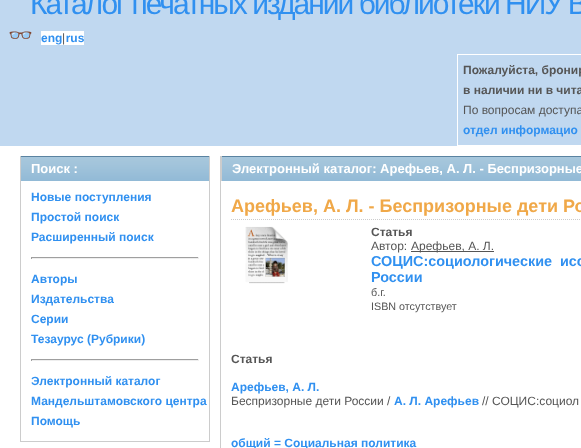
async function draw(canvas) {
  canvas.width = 581;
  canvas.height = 448;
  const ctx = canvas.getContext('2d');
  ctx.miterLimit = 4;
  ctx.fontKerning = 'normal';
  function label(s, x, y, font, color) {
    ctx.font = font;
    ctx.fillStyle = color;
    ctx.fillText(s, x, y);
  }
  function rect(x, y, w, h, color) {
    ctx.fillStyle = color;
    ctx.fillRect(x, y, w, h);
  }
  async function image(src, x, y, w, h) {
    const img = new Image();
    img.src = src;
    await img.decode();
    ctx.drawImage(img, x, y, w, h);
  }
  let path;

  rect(0, 0, 581, 448, '#fff');
  rect(0, 0, 581, 146, '#c0d8f0');
  ctx.letterSpacing = '-2px';
  label('Каталог печатных изданий библиотеки НИУ В', 30, 14, '30px Liberation Sans', '#3090f0');
  ctx.letterSpacing = '0px';
  label('👓', 8, 42, 'bold 20px Noto Color Emoji', '#3090f0');
  rect(41, 31, 43, 14, '#fff');
  label('eng rus', 41, 42, 'bold 12px Liberation Sans', '#3090f0');
  label('|', 62, 42, '12px Liberation Sans', '#555');
  ctx.strokeStyle = '#fff';
  ctx.strokeRect(457.5, 54.5, 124, 91);
  label('Пожалуйста, бронир', 463, 74, 'bold 12px Liberation Sans', '#555');
  label('в наличии ни в чита', 463, 94, 'bold 12px Liberation Sans', '#555');
  label('По вопросам доступа', 463, 114, '12px Liberation Sans', '#555');
  label('отдел информацио', 463, 134, 'bold 12px Liberation Sans', '#3090f0');
  await image('assets/img1.png', 21, 156, 188, 25);
  rect(209, 156, 1, 286, '#ccc');
  rect(20, 156, 1, 25, '#ccc');
  label('Поиск :', 31, 173, 'bold 13px Liberation Sans', '#fff');
  rect(20, 441, 190, 1, '#ccc');
  rect(20, 181, 1, 261, '#ccc');
  label('Новые поступления', 31, 201, 'bold 12px Liberation Sans', '#3090f0');
  label('Простой поиск', 31, 221, 'bold 12px Liberation Sans', '#3090f0');
  label('Расширенный поиск', 31, 241, 'bold 12px Liberation Sans', '#3090f0');
  rect(31, 257, 168, 1, '#9f9f9f');
  rect(198, 257, 1, 2, '#eee');
  rect(31, 258, 168, 1, '#eee');
  rect(31, 257, 1, 2, '#9f9f9f');
  label('Авторы', 31, 283, 'bold 12px Liberation Sans', '#3090f0');
  label('Издательства', 31, 303, 'bold 12px Liberation Sans', '#3090f0');
  label('Серии', 31, 323, 'bold 12px Liberation Sans', '#3090f0');
  label('Тезаурус (Рубрики)', 31, 343, 'bold 12px Liberation Sans', '#3090f0');
  rect(31, 359, 168, 1, '#9f9f9f');
  rect(198, 359, 1, 2, '#eee');
  rect(31, 360, 168, 1, '#eee');
  rect(31, 359, 1, 2, '#9f9f9f');
  label('Электронный каталог', 31, 385, 'bold 12px Liberation Sans', '#3090f0');
  label('Мандельштамовского центра', 31, 405, 'bold 12px Liberation Sans', '#3090f0');
  label('Помощь', 31, 425, 'bold 12px Liberation Sans', '#3090f0');
  rect(220, 156, 1, 292, '#ccc');
  await image('assets/img2.png', 222, 156, 359, 25);
  rect(221, 156, 1, 25, '#ccc');
  label('Электронный каталог: Арефьев, А. Л. - Беспризорные', 232, 173, 'bold 13px Liberation Sans', '#fff');
  path = new Path2D('M231 219.5H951');
  ctx.strokeStyle = '#ccc';
  ctx.setLineDash([1, 1]);
  ctx.stroke(path);
  label('Арефьев, А. Л. - Беспризорные дети Ро', 231, 212, 'bold 18px Liberation Sans', '#f0a848');
  await image('assets/img3.png', 245, 226, 43, 58);
  label('Статья', 371, 236, 'bold 12px Liberation Sans', '#555');
  label('Автор:', 371, 250, '12px Liberation Sans', '#555');
  rect(411, 251, 83, 1, '#555');
  label('Арефьев, А. Л.', 411, 250, '12px Liberation Sans', '#555');
  ctx.wordSpacing = '4px';
  label('СОЦИС:социологические исс', 371, 266, 'bold 14.4px Liberation Sans', '#3090f0');
  ctx.wordSpacing = '0px';
  label('России', 371, 282, 'bold 14.4px Liberation Sans', '#3090f0');
  label('б.г.', 371, 296, '10.75px Liberation Sans', '#555');
  label('ISBN отсутствует', 371, 310, '10.75px Liberation Sans', '#555');
  label('Статья', 231, 363, 'bold 12px Liberation Sans', '#555');
  label('Арефьев, А. Л.', 231, 391, 'bold 12px Liberation Sans', '#3090f0');
  label('Беспризорные дети России /', 231, 405, '12px Liberation Sans', '#555');
  label('А. Л. Арефьев', 394, 405, 'bold 12px Liberation Sans', '#3090f0');
  label('// СОЦИС:социол', 482, 405, '12px Liberation Sans', '#555');
  label('общий = Социальная политика', 231, 447, 'bold 12px Liberation Sans', '#3090f0');
}

draw(document.querySelector('canvas'));
